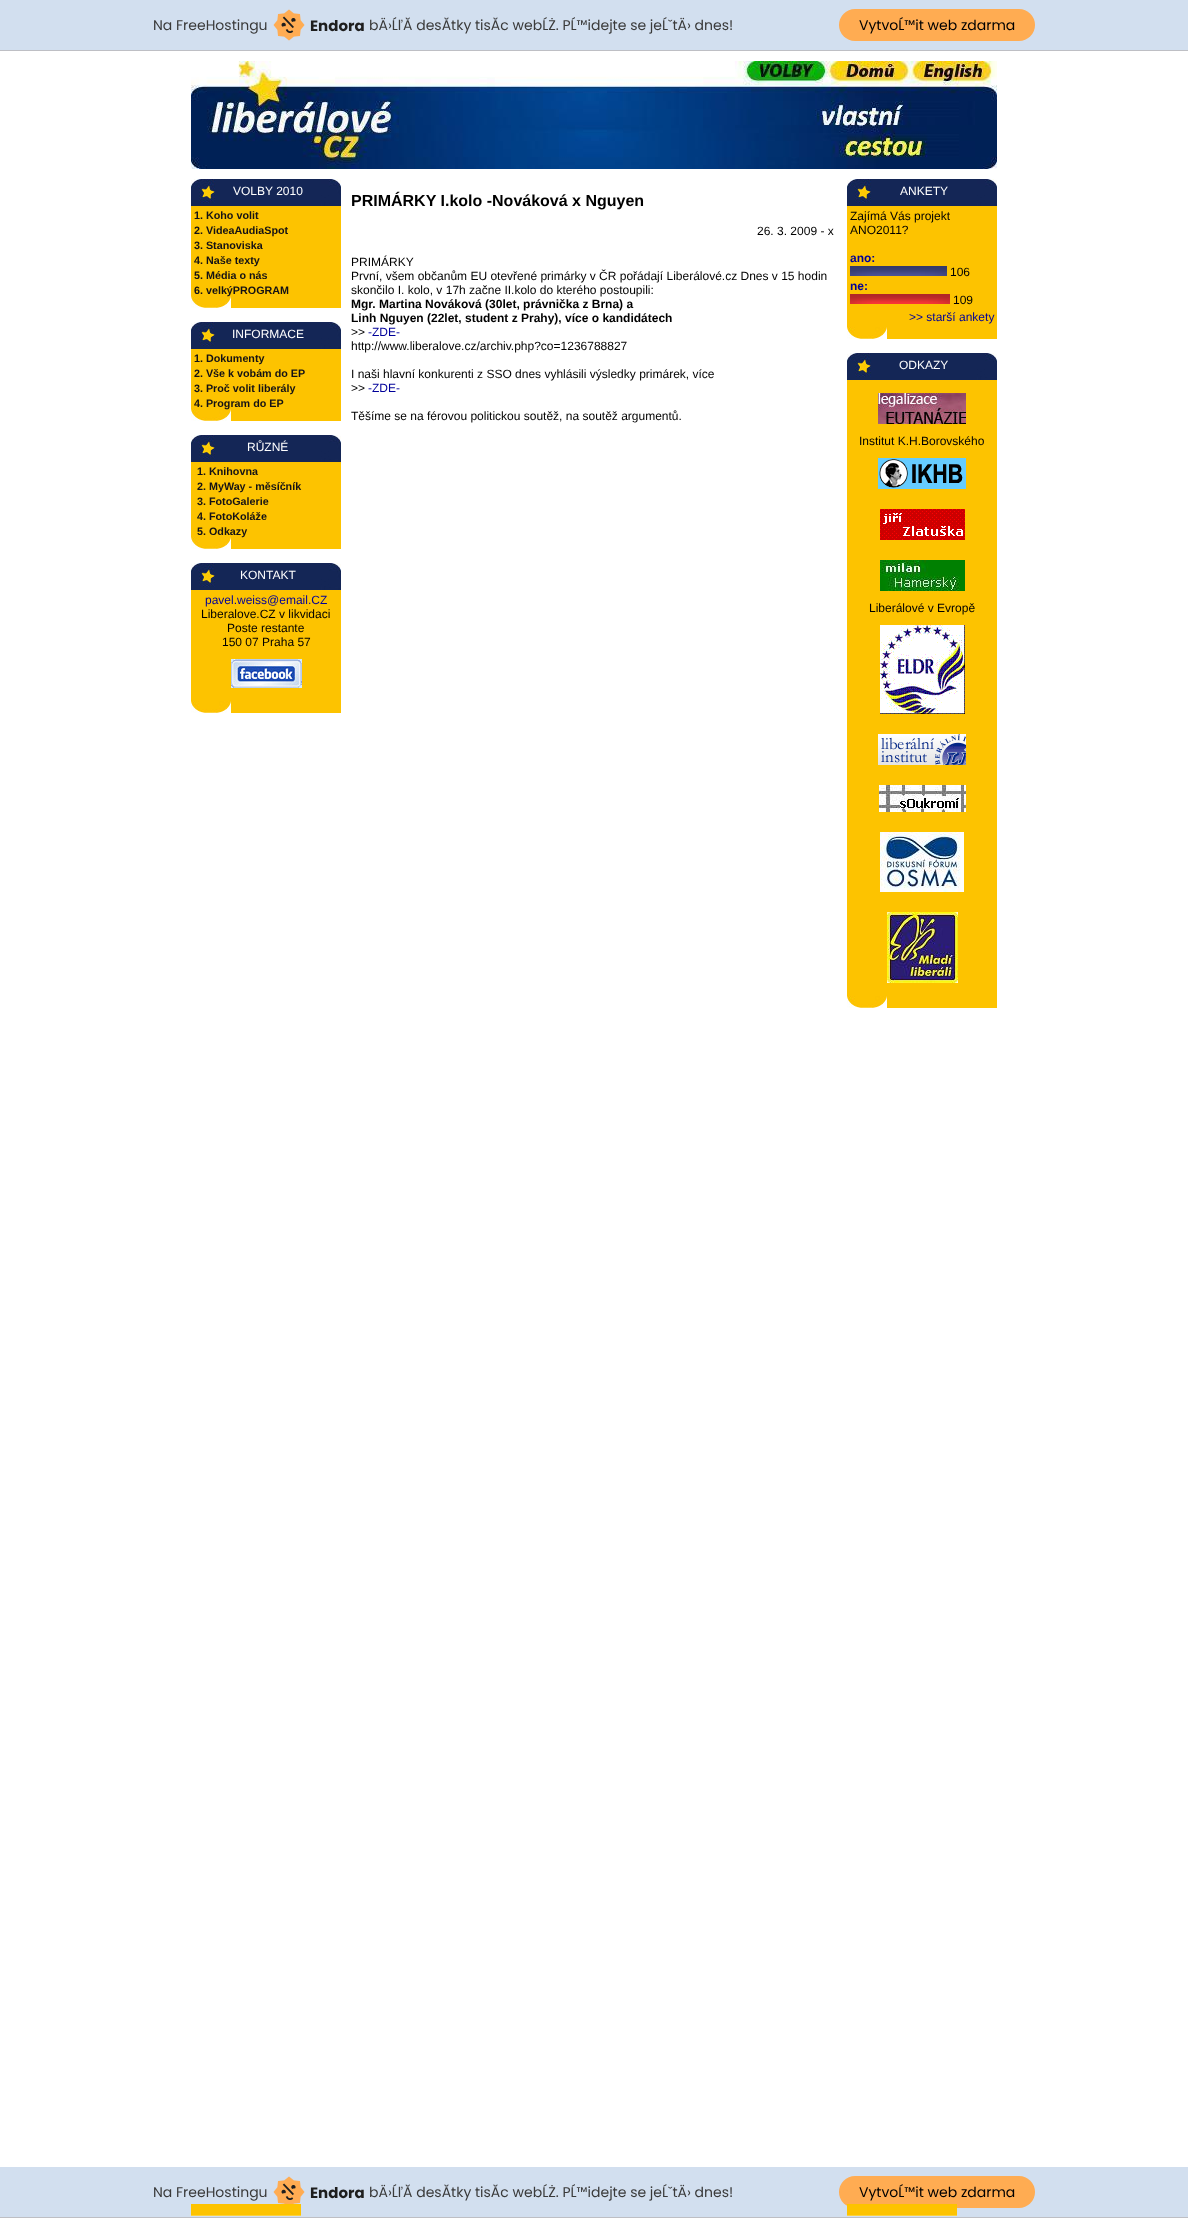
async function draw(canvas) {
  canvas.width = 1188;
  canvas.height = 2218;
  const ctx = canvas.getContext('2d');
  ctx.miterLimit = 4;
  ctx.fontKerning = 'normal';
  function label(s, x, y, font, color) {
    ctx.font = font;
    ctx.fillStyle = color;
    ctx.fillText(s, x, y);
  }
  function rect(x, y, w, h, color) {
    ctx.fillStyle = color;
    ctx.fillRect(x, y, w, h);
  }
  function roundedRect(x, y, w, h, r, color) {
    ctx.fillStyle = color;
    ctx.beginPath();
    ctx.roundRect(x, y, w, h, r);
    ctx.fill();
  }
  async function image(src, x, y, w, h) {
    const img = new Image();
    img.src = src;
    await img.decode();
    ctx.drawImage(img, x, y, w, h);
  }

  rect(0, 0, 1188, 2218, '#fff');
  rect(0, 0, 1188, 50, '#d2dfef');
  rect(0, 50, 1188, 1, '#bebfc4');
  label('Na FreeHostingu', 153, 30, '14px Poppins', '#3a3a3a');
  await image('assets/img1.png', 273, 9, 32, 32);
  label('Endora', 310, 31, 'bold 15px Poppins', '#1e1e1e');
  label('bÄ›ĹľĂ desĂtky tisĂc webĹŻ. PĹ™idejte se jeĹˇtÄ› dnes!', 369, 30, '14px Poppins', '#3a3a3a');
  roundedRect(839, 9, 196, 32, 16, '#ffac52');
  label('VytvoĹ™it web zdarma', 859, 30, '14px Poppins', '#000');
  await image('assets/img2.png', 191, 61, 806, 108);
  rect(191, 206, 150, 102, '#fdc300');
  await image('assets/img3.png', 191, 179, 24, 27);
  rect(215, 179, 106, 27, '#142656');
  label('VOLBY 2010', 233, 195, '12px Liberation Sans', '#fff');
  await image('assets/img4.png', 321, 179, 20, 27);
  label('1. Koho volit', 194, 219, 'bold 10.75px Liberation Sans', '#141215');
  label('2. VideaAudiaSpot', 194, 234, 'bold 10.75px Liberation Sans', '#141215');
  label('3. Stanoviska', 194, 249, 'bold 10.75px Liberation Sans', '#141215');
  label('4. Naše texty', 194, 264, 'bold 10.75px Liberation Sans', '#141215');
  label('5. Média o nás', 194, 279, 'bold 10.75px Liberation Sans', '#141215');
  await image('assets/img5.png', 191, 296, 20, 12);
  await image('assets/img6.png', 211, 296, 20, 12);
  label('6. velkýPROGRAM', 194, 294, 'bold 10.75px Liberation Sans', '#141215');
  rect(0, 2167, 1188, 50, '#d2dfef');
  rect(191, 2204, 110, 11, '#fdc300');
  rect(191, 349, 150, 72, '#fdc300');
  await image('assets/img3.png', 191, 322, 24, 27);
  rect(215, 322, 106, 27, '#142656');
  label('INFORMACE', 232, 338, '12px Liberation Sans', '#fff');
  await image('assets/img4.png', 321, 322, 20, 27);
  label('1. Dokumenty', 194, 362, 'bold 10.75px Liberation Sans', '#141215');
  label('2. Vše k vobám do EP', 194, 377, 'bold 10.75px Liberation Sans', '#141215');
  label('3. Proč volit liberály', 194, 392, 'bold 10.75px Liberation Sans', '#141215');
  await image('assets/img5.png', 191, 409, 20, 12);
  await image('assets/img6.png', 211, 409, 20, 12);
  label('4. Program do EP', 194, 407, 'bold 10.75px Liberation Sans', '#141215');
  rect(191, 2215, 110, 1, '#fcd23e');
  rect(191, 462, 150, 87, '#fdc300');
  await image('assets/img3.png', 191, 435, 24, 27);
  rect(215, 435, 106, 27, '#142656');
  label('RŮZNÉ', 247, 451, '12px Liberation Sans', '#fff');
  await image('assets/img4.png', 321, 435, 20, 27);
  label('1. Knihovna', 197, 475, 'bold 10.75px Liberation Sans', '#141215');
  label('2. MyWay - měsíčník', 197, 490, 'bold 10.75px Liberation Sans', '#141215');
  label('3. FotoGalerie', 197, 505, 'bold 10.75px Liberation Sans', '#141215');
  label('4. FotoKoláže', 197, 520, 'bold 10.75px Liberation Sans', '#141215');
  await image('assets/img5.png', 191, 537, 20, 12);
  await image('assets/img6.png', 211, 537, 20, 12);
  label('5. Odkazy', 197, 535, 'bold 10.75px Liberation Sans', '#141215');
  rect(191, 590, 150, 123, '#fdc300');
  await image('assets/img3.png', 191, 563, 24, 27);
  rect(215, 563, 106, 27, '#142656');
  label('KONTAKT', 240, 579, '12px Liberation Sans', '#fff');
  await image('assets/img4.png', 321, 563, 20, 27);
  label('pavel.weiss@email.CZ', 205, 604, '12px Liberation Sans', '#009');
  label('Liberalove.CZ v likvidaci', 201, 618, '12px Liberation Sans', '#000');
  label('Poste restante', 227, 632, '12px Liberation Sans', '#000');
  label('150 07 Praha 57', 222, 646, '12px Liberation Sans', '#000');
  await image('assets/img7.png', 231, 659, 71, 29);
  await image('assets/img5.png', 191, 701, 20, 12);
  await image('assets/img6.png', 211, 701, 20, 12);
  label('PRIMÁRKY I.kolo -Nováková x Nguyen', 351, 206, 'bold 16px Liberation Sans', '#000');
  label('26. 3. 2009 - x', 757, 235, '12px Liberation Sans', '#000');
  label('PRIMÁRKY', 351, 266, '12px Liberation Sans', '#000');
  label('První, všem občanům EU otevřené primárky v ČR pořádají Liberálové.cz Dnes v 15 hodin', 351, 280, '12px Liberation Sans', '#000');
  label('skončilo I. kolo, v 17h začne II.kolo do kterého postoupili:', 351, 294, '12px Liberation Sans', '#000');
  label('Mgr. Martina Nováková (30let, právnička z Brna) a', 351, 308, 'bold 12px Liberation Sans', '#000');
  label('Linh Nguyen (22let, student z Prahy), více o kandidátech', 351, 322, 'bold 12px Liberation Sans', '#000');
  label('>>', 351, 336, '12px Liberation Sans', '#000');
  label('-ZDE-', 368, 336, '12px Liberation Sans', '#009');
  label('http://www.liberalove.cz/archiv.php?co=1236788827', 351, 350, '12px Liberation Sans', '#000');
  label('I naši hlavní konkurenti z SSO dnes vyhlásili výsledky primárek, více', 351, 378, '12px Liberation Sans', '#000');
  label('>>', 351, 392, '12px Liberation Sans', '#000');
  label('-ZDE-', 368, 392, '12px Liberation Sans', '#009');
  label('Těšíme se na férovou politickou soutěž, na soutěž argumentů.', 351, 420, '12px Liberation Sans', '#000');
  rect(847, 206, 150, 133, '#fdc300');
  await image('assets/img3.png', 847, 179, 24, 27);
  rect(871, 179, 106, 27, '#142656');
  label('ANKETY', 900, 195, '12px Liberation Sans', '#fff');
  await image('assets/img4.png', 977, 179, 20, 27);
  label('Zajímá Vás projekt', 850, 220, '12px Liberation Sans', '#000');
  label('ANO2011?', 850, 234, '12px Liberation Sans', '#000');
  label('ano:', 850, 262, 'bold 12px Liberation Sans', '#009');
  await image('assets/img8.png', 850, 266, 97, 10);
  label('106', 950, 276, '12px Liberation Sans', '#000');
  label('ne:', 850, 290, 'bold 12px Liberation Sans', '#009');
  await image('assets/img9.png', 850, 294, 100, 10);
  label('109', 953, 304, '12px Liberation Sans', '#000');
  label('>> starší ankety', 909, 321, '12px Liberation Sans', '#009');
  await image('assets/img5.png', 847, 327, 20, 12);
  await image('assets/img6.png', 867, 327, 20, 12);
  roundedRect(839, 2176, 196, 32, 16, '#ffac52');
  rect(847, 2204, 110, 11, '#fdc300');
  rect(847, 380, 150, 628, '#fdc300');
  await image('assets/img3.png', 847, 353, 24, 27);
  rect(871, 353, 106, 27, '#142656');
  label('ODKAZY', 899, 369, '12px Liberation Sans', '#fff');
  await image('assets/img4.png', 977, 353, 20, 27);
  await image('assets/img10.png', 878, 393, 88, 31);
  label('Institut K.H.Borovského', 859, 445, '12px Liberation Sans', '#000');
  await image('assets/img11.png', 878, 458, 88, 31);
  await image('assets/img12.png', 880, 509, 85, 31);
  await image('assets/img13.png', 880, 560, 85, 31);
  label('Liberálové v Evropě', 869, 612, '12px Liberation Sans', '#000');
  await image('assets/img14.png', 880, 625, 85, 89);
  await image('assets/img15.png', 878, 734, 88, 31);
  await image('assets/img16.png', 879, 785, 87, 27);
  await image('assets/img17.png', 880, 832, 84, 60);
  await image('assets/img18.png', 887, 912, 71, 71);
  await image('assets/img5.png', 847, 996, 20, 12);
  await image('assets/img6.png', 867, 996, 20, 12);
  rect(847, 2215, 110, 1, '#fcd23e');
  rect(0, 2217, 1188, 1, '#bebfc4');
  label('Na FreeHostingu', 153, 2197, '14px Poppins', '#3a3a3a');
  await image('assets/img19.png', 273, 2176, 32, 28);
  label('Endora', 310, 2198, 'bold 15px Poppins', '#1e1e1e');
  label('bÄ›ĹľĂ desĂtky tisĂc webĹŻ. PĹ™idejte se jeĹˇtÄ› dnes!', 369, 2197, '14px Poppins', '#3a3a3a');
  label('VytvoĹ™it web zdarma', 859, 2197, '14px Poppins', '#000');
}

draw(document.querySelector('canvas'));
